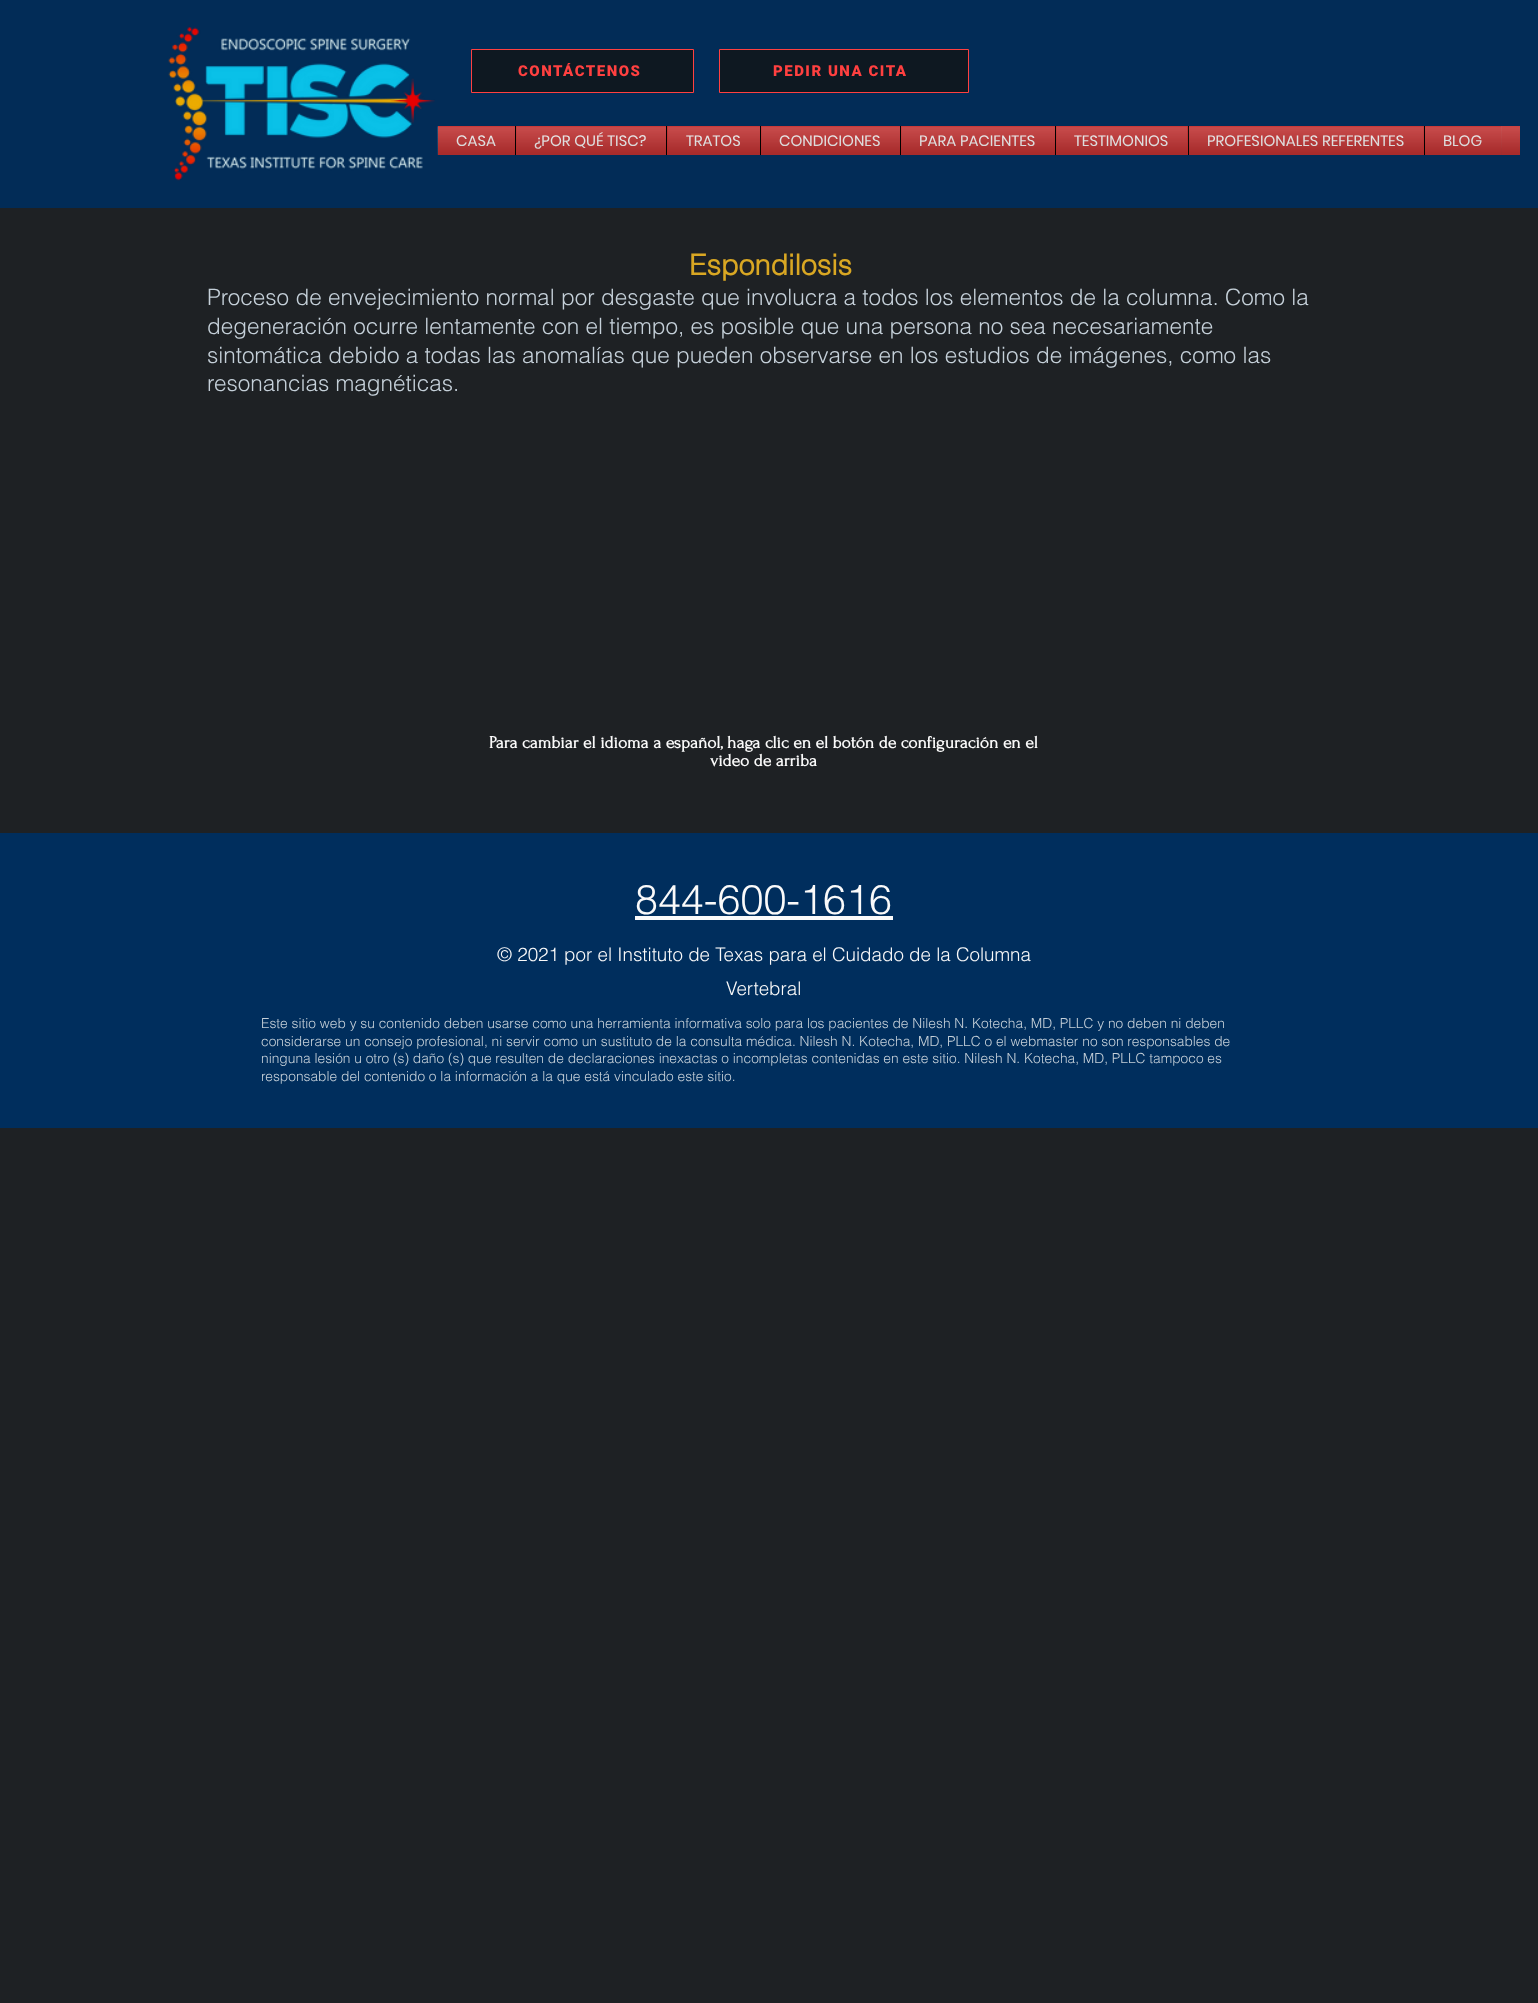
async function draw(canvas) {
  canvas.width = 1538;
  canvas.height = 2003;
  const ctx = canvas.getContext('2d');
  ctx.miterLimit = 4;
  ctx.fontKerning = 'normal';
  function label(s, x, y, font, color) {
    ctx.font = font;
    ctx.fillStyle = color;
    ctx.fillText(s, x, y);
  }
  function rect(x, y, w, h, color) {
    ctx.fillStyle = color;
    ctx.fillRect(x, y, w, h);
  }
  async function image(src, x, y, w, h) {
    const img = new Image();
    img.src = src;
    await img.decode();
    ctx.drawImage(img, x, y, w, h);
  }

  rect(0, 0, 1538, 2003, '#1e2124');
  rect(0, 0, 1538, 208, '#022c57');
  await image('assets/img1.png', 168, 27, 267, 154);
  ctx.fillStyle = '#0e1821';
  ctx.beginPath();
  ctx.rect(471.5, 49.5, 222, 43);
  ctx.fill();
  ctx.strokeStyle = '#ff4040';
  ctx.stroke();
  ctx.save();
  ctx.beginPath();
  ctx.rect(518, 63, 123, 17);
  ctx.clip();
  ctx.letterSpacing = '1.5px';
  label('CONTÁCTENOS', 518, 76, '900 15px Roboto', '#ff4040');
  ctx.restore();
  ctx.beginPath();
  ctx.rect(719.5, 49.5, 249, 43);
  ctx.fill();
  ctx.stroke();
  ctx.letterSpacing = '1.5px';
  label('PEDIR UNA CITA', 773, 76, '900 15px Roboto', '#ff4040');
  rect(1501, 126, 19, 29, '#c42323');
  await image('assets/img2.png', 437, 126, 1083, 29);
  await image('assets/img3.png', 1501, 127, 19, 28);
  rect(438, 126, 77, 29, '#c42323');
  ctx.letterSpacing = '0px';
  label('CASA', 456, 146, '15px Poppins', '#fafafa');
  await image('assets/img4.png', 437, 126, 78, 29);
  await image('assets/img5.png', 438, 127, 77, 28);
  rect(516, 126, 150, 29, '#c42323');
  rect(515, 126, 1, 29, '#000');
  label('¿POR QUÉ TISC?', 534, 146, '15px Poppins', '#fafafa');
  await image('assets/img6.png', 516, 126, 150, 29);
  await image('assets/img7.png', 516, 127, 150, 28);
  rect(667, 126, 93, 29, '#c42323');
  rect(666, 126, 1, 29, '#000');
  label('TRATOS', 686, 146, '15px Poppins', '#fafafa');
  await image('assets/img8.png', 667, 126, 93, 29);
  await image('assets/img9.png', 667, 127, 93, 28);
  rect(761, 126, 139, 29, '#c42323');
  rect(760, 126, 1, 29, '#000');
  label('CONDICIONES', 779, 146, '15px Poppins', '#fafafa');
  await image('assets/img10.png', 761, 126, 139, 29);
  await image('assets/img11.png', 761, 127, 139, 28);
  rect(901, 126, 154, 29, '#c42323');
  rect(900, 126, 1, 29, '#000');
  label('PARA PACIENTES', 919, 146, '15px Poppins', '#fafafa');
  await image('assets/img12.png', 901, 126, 154, 29);
  await image('assets/img13.png', 901, 127, 154, 28);
  rect(1056, 126, 132, 29, '#c42323');
  rect(1055, 126, 1, 29, '#000');
  label('TESTIMONIOS', 1074, 146, '15px Poppins', '#fafafa');
  await image('assets/img14.png', 1056, 126, 132, 29);
  await image('assets/img15.png', 1056, 127, 132, 28);
  rect(1189, 126, 235, 29, '#c42323');
  rect(1188, 126, 1, 29, '#000');
  label('PROFESIONALES REFERENTES', 1207, 146, '15px Poppins', '#fafafa');
  await image('assets/img16.png', 1188, 126, 236, 29);
  await image('assets/img17.png', 1189, 127, 235, 28);
  rect(1425, 126, 76, 29, '#c42323');
  rect(1424, 126, 1, 29, '#000');
  label('BLOG', 1443, 146, '15px Poppins', '#fafafa');
  await image('assets/img18.png', 1425, 126, 77, 29);
  await image('assets/img19.png', 1425, 127, 77, 28);
  label('Espondilosis', 689, 275, 'bold 28.75px helvetica', '#d9a723');
  label('Proceso de envejecimiento normal por desgaste que involucra a todos los elementos de la columna. Como la', 207, 305, '300 22.5px helvetica', '#c5d0d9');
  label('degeneración ocurre lentamente con el tiempo, es posible que una persona no sea necesariamente', 207, 334, '300 22.5px helvetica', '#c5d0d9');
  label('sintomática debido a todas las anomalías que pueden observarse en los estudios de imágenes, como las', 207, 363, '300 22.5px helvetica', '#c5d0d9');
  label('resonancias magnéticas.', 207, 391, '300 22.5px helvetica', '#c5d0d9');
  label('Para cambiar el idioma a español, haga clic en el botón de configuración en el', 489, 748, 'bold 17.5px Forum', '#fafafa');
  label('video de arriba', 710, 766, 'bold 17.5px Forum', '#fafafa');
  rect(0, 833, 1538, 295, '#002e5d');
  label('844-600-1616', 635, 914, '300 41.25px helvetica', '#fafafa');
  rect(635, 916, 258, 4, '#fafafa');
  label('© 2021 por el Instituto de Texas para el Cuidado de la Columna', 497, 961, '300 18.75px helvetica', '#fafafa');
  label('Vertebral', 726, 995, '300 18.75px helvetica', '#fafafa');
  label('Este sitio web y su contenido deben usarse como una herramienta informativa solo para los pacientes de Nilesh N. Kotecha, MD, PLLC y no deben ni deben', 261, 1028, '300 13.75px helvetica', '#c5d0d9');
  label('considerarse un consejo profesional, ni servir como un sustituto de la consulta médica. Nilesh N. Kotecha, MD, PLLC o el webmaster no son responsables de', 261, 1046, '300 13.75px helvetica', '#c5d0d9');
  label('ninguna lesión u otro (s) daño (s) que resulten de declaraciones inexactas o incompletas contenidas en este sitio. Nilesh N. Kotecha, MD, PLLC tampoco es', 261, 1063, '300 13.75px helvetica', '#c5d0d9');
  label('responsable del contenido o la información a la que está vinculado este sitio.', 261, 1081, '300 13.75px helvetica', '#c5d0d9');
}

draw(document.querySelector('canvas'));
